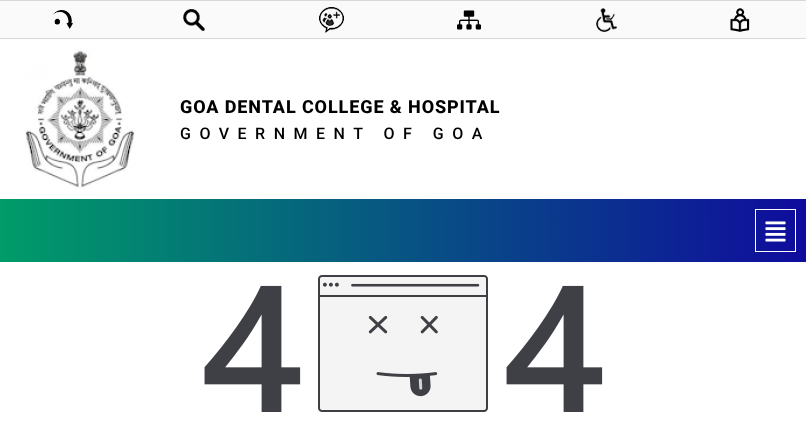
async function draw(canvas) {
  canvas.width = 806;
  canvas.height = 431;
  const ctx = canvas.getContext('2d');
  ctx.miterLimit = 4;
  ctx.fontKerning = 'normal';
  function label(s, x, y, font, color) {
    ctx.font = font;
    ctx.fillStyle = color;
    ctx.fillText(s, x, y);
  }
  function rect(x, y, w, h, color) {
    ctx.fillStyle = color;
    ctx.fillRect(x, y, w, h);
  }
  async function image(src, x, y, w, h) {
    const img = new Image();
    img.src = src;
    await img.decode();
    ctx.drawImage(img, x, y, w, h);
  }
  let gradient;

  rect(0, 0, 806, 431, '#fafafa');
  rect(0, 38, 806, 1, '#d8d8d8');
  rect(0, 0, 806, 1, '#d8d8d8');
  await image('assets/img1.png', 53, 10, 20, 19);
  await image('assets/img2.png', 183, 9, 22, 22);
  await image('assets/img3.png', 319, 7, 25, 26);
  await image('assets/img4.png', 457, 10, 24, 20);
  await image('assets/img5.png', 596, 8, 21, 24);
  await image('assets/img6.png', 730, 8, 20, 24);
  rect(0, 39, 806, 160, '#fff');
  await image('assets/img7.png', 25, 49, 110, 140);
  ctx.letterSpacing = '0.9px';
  label('GOA DENTAL COLLEGE & HOSPITAL', 180, 113, '800 18px Roboto', '#000');
  ctx.letterSpacing = '8.5px';
  label('GOVERNMENT OF GOA', 180, 139, '500 16px Roboto', '#000');
  gradient = ctx.createLinearGradient(0, 231, 806, 230);
  gradient.addColorStop(0, '#009c69');
  gradient.addColorStop(1, '#0f0c9d');
  ctx.fillStyle = gradient;
  ctx.fillRect(0, 199, 806, 63);
  ctx.strokeStyle = '#fff';
  ctx.strokeRect(755.5, 209.5, 40, 42);
  await image('assets/img8.png', 765, 221, 21, 21);
  rect(0, 262, 806, 169, '#fff');
  await image('assets/img9.png', 204, 275, 399, 137);
}

draw(document.querySelector('canvas'));
